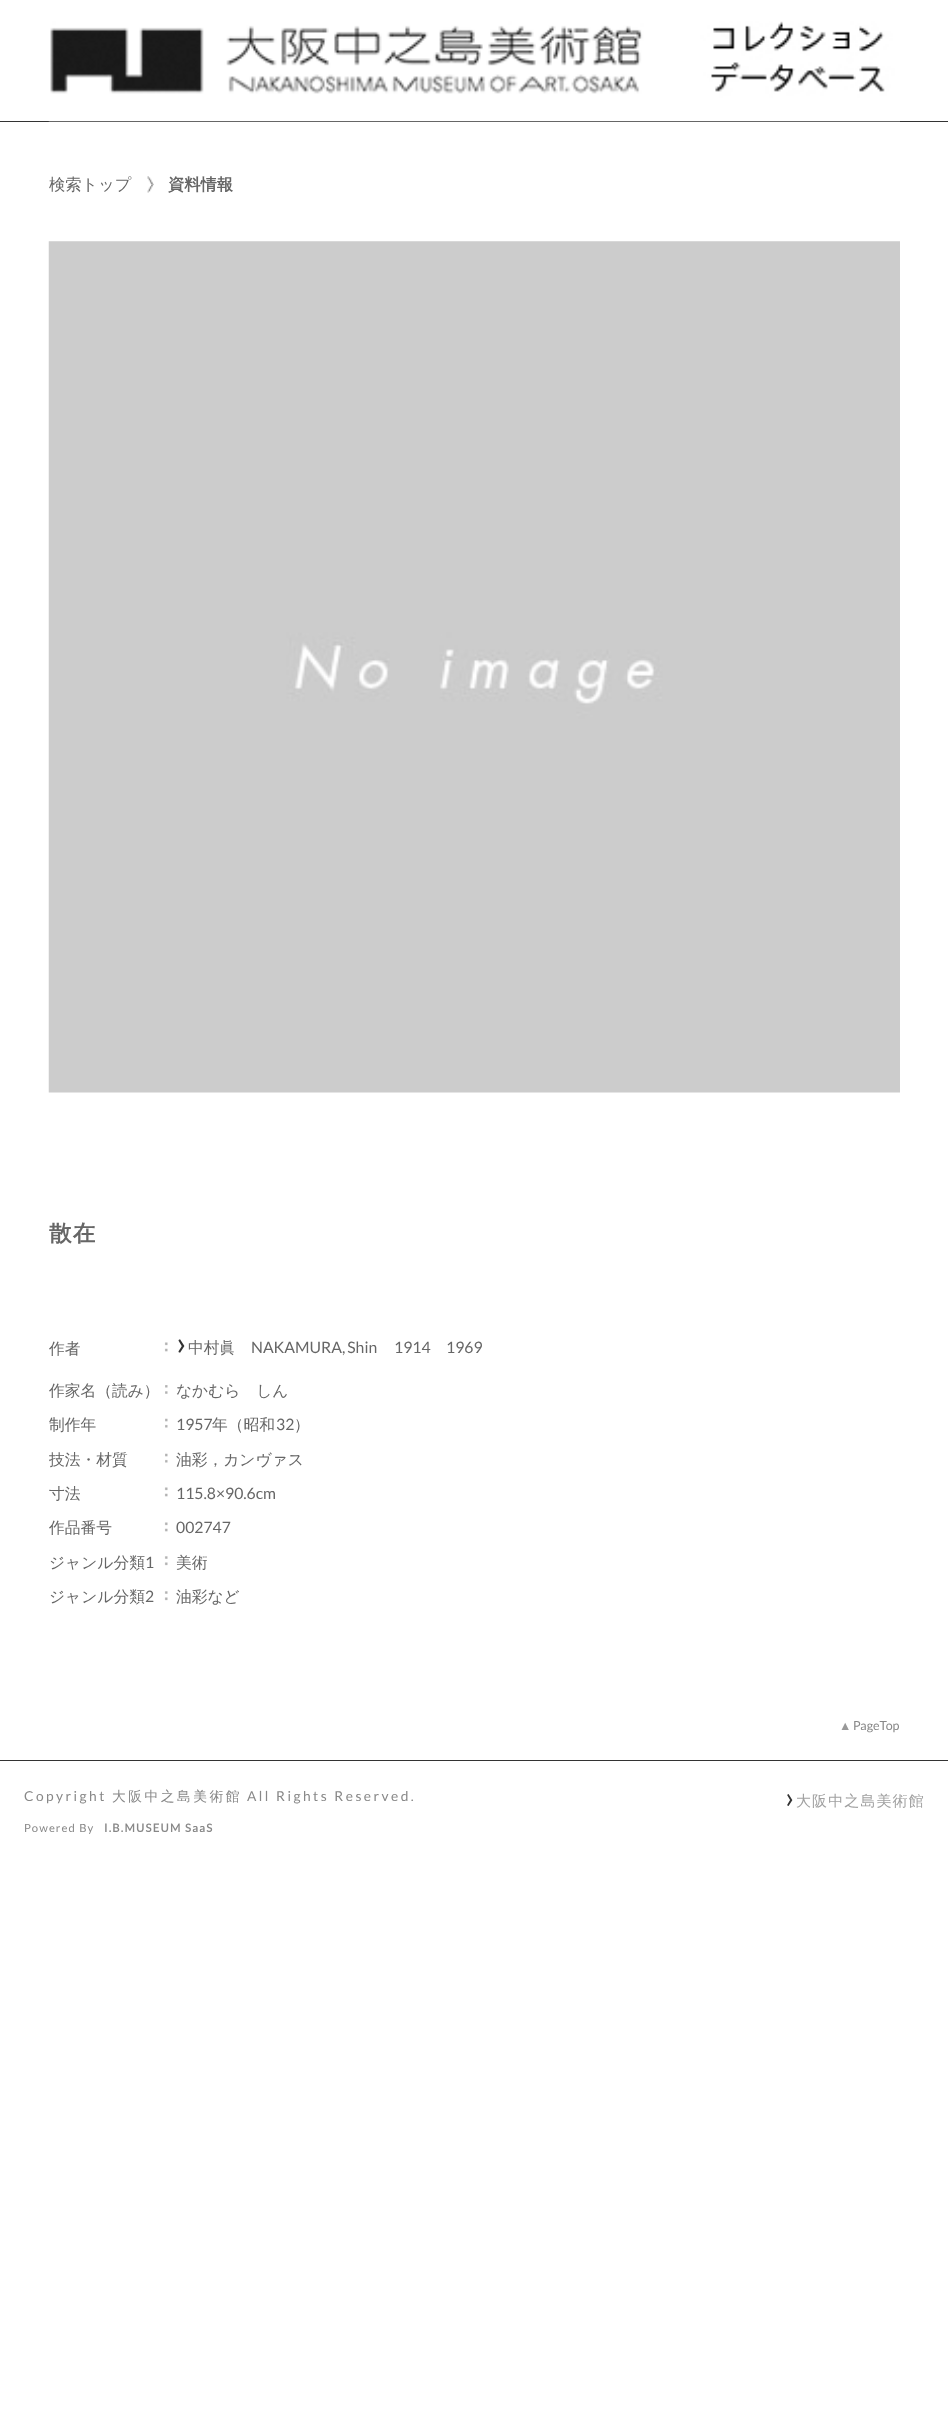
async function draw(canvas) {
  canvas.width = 948;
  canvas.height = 2414;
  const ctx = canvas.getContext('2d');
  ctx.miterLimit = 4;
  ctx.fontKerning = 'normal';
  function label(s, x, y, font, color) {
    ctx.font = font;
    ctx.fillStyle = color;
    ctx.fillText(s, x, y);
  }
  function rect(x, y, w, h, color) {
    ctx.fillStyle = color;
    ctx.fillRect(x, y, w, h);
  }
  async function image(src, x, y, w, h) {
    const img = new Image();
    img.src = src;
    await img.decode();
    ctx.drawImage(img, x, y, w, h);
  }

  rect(0, 0, 948, 2414, '#fff');
  rect(0, 121, 948, 1, '#333');
  await image('assets/img1.png', 48, 21, 852, 101);
  rect(0, 1760, 948, 1, '#333');
  label('検索トップ', 49, 190, '500 16.25px WenQuanYi Zen Hei', '#666');
  await image('assets/img2.png', 147, 176, 7, 17);
  label('資料情報', 168, 190, 'bold 16.25px WenQuanYi Zen Hei', '#666');
  await image('assets/img3.png', 48, 241, 852, 852);
  ctx.letterSpacing = '1.25px';
  label('散在', 49, 1241, 'bold 22.5px WenQuanYi Zen Hei', '#666');
  ctx.letterSpacing = '0px';
  label('作者', 49, 1354, '500 15.75px WenQuanYi Zen Hei', '#666');
  await image('assets/img4.png', 164, 1342, 4, 10);
  label('›', 176, 1355, '34px Lato', '#333');
  label('中村眞', 188, 1353, '500 15.75px WenQuanYi Zen Hei', '#666');
  ctx.wordSpacing = '-1px';
  label('NAKAMURA, Shin', 251, 1353, '15.75px Lato', '#666');
  ctx.wordSpacing = '0px';
  label('1914', 394, 1353, '15.75px Lato', '#666');
  label('1969', 446, 1353, '15.75px Lato', '#666');
  label('作家名（読み）', 49, 1396, '500 15.75px WenQuanYi Zen Hei', '#666');
  await image('assets/img5.png', 165, 1385, 3, 9);
  label('なかむら　しん', 176, 1396, '500 15.75px WenQuanYi Zen Hei', '#666');
  label('制作年', 49, 1430, '500 15.75px WenQuanYi Zen Hei', '#666');
  await image('assets/img6.png', 165, 1418, 3, 10);
  label('1957', 176, 1430, '15.75px Lato', '#666');
  label('年（昭和', 212, 1430, '500 15.75px WenQuanYi Zen Hei', '#666');
  label('32', 276, 1430, '15.75px Lato', '#666');
  label('）', 294, 1430, '500 15.75px WenQuanYi Zen Hei', '#666');
  label('技法・材質', 49, 1465, '500 15.75px WenQuanYi Zen Hei', '#666');
  await image('assets/img6.png', 165, 1453, 3, 10);
  label('油彩，カンヴァス', 176, 1465, '500 15.75px WenQuanYi Zen Hei', '#666');
  label('寸法', 49, 1499, '500 15.75px WenQuanYi Zen Hei', '#666');
  await image('assets/img4.png', 164, 1487, 4, 10);
  label('115.8×90.6cm', 176, 1499, '15.75px Lato', '#666');
  label('作品番号', 49, 1533, '500 15.75px WenQuanYi Zen Hei', '#666');
  await image('assets/img4.png', 164, 1522, 4, 10);
  label('002747', 176, 1533, '15.75px Lato', '#666');
  label('ジャンル分類', 49, 1568, '500 15.75px WenQuanYi Zen Hei', '#666');
  label('1', 145, 1568, '15.75px Lato', '#666');
  await image('assets/img7.png', 164, 1556, 4, 10);
  label('美術', 176, 1568, '500 15.75px WenQuanYi Zen Hei', '#666');
  label('ジャンル分類', 49, 1602, '500 15.75px WenQuanYi Zen Hei', '#666');
  label('2', 145, 1602, '15.75px Lato', '#666');
  await image('assets/img7.png', 164, 1591, 4, 10);
  label('油彩など', 176, 1602, '500 15.75px WenQuanYi Zen Hei', '#666');
  label('▲', 839, 1730, '12.5px Liberation Sans', '#999');
  label('PageTop', 853, 1730, '12.5px Lato', '#888');
  ctx.letterSpacing = '2.5px';
  label('Copyright', 24, 1801, '13.75px Lato', '#888');
  label('大阪中之島美術館', 112, 1801, '500 13.75px WenQuanYi Zen Hei', '#888');
  label('All Rights Reserved.', 247, 1801, '13.75px Lato', '#888');
  ctx.letterSpacing = '1.1px';
  label('›', 785, 1808, '30px Lato', '#333');
  label('大阪中之島美術館', 796, 1806, '500 15px WenQuanYi Zen Hei', '#a1a1a1');
  label('Powered By', 24, 1832, '11.25px Lato', '#888');
  ctx.letterSpacing = '1.25px';
  label('I.B.MUSEUM SaaS', 104, 1832, 'bold 11.25px Lato', '#888');
}

draw(document.querySelector('canvas'));
